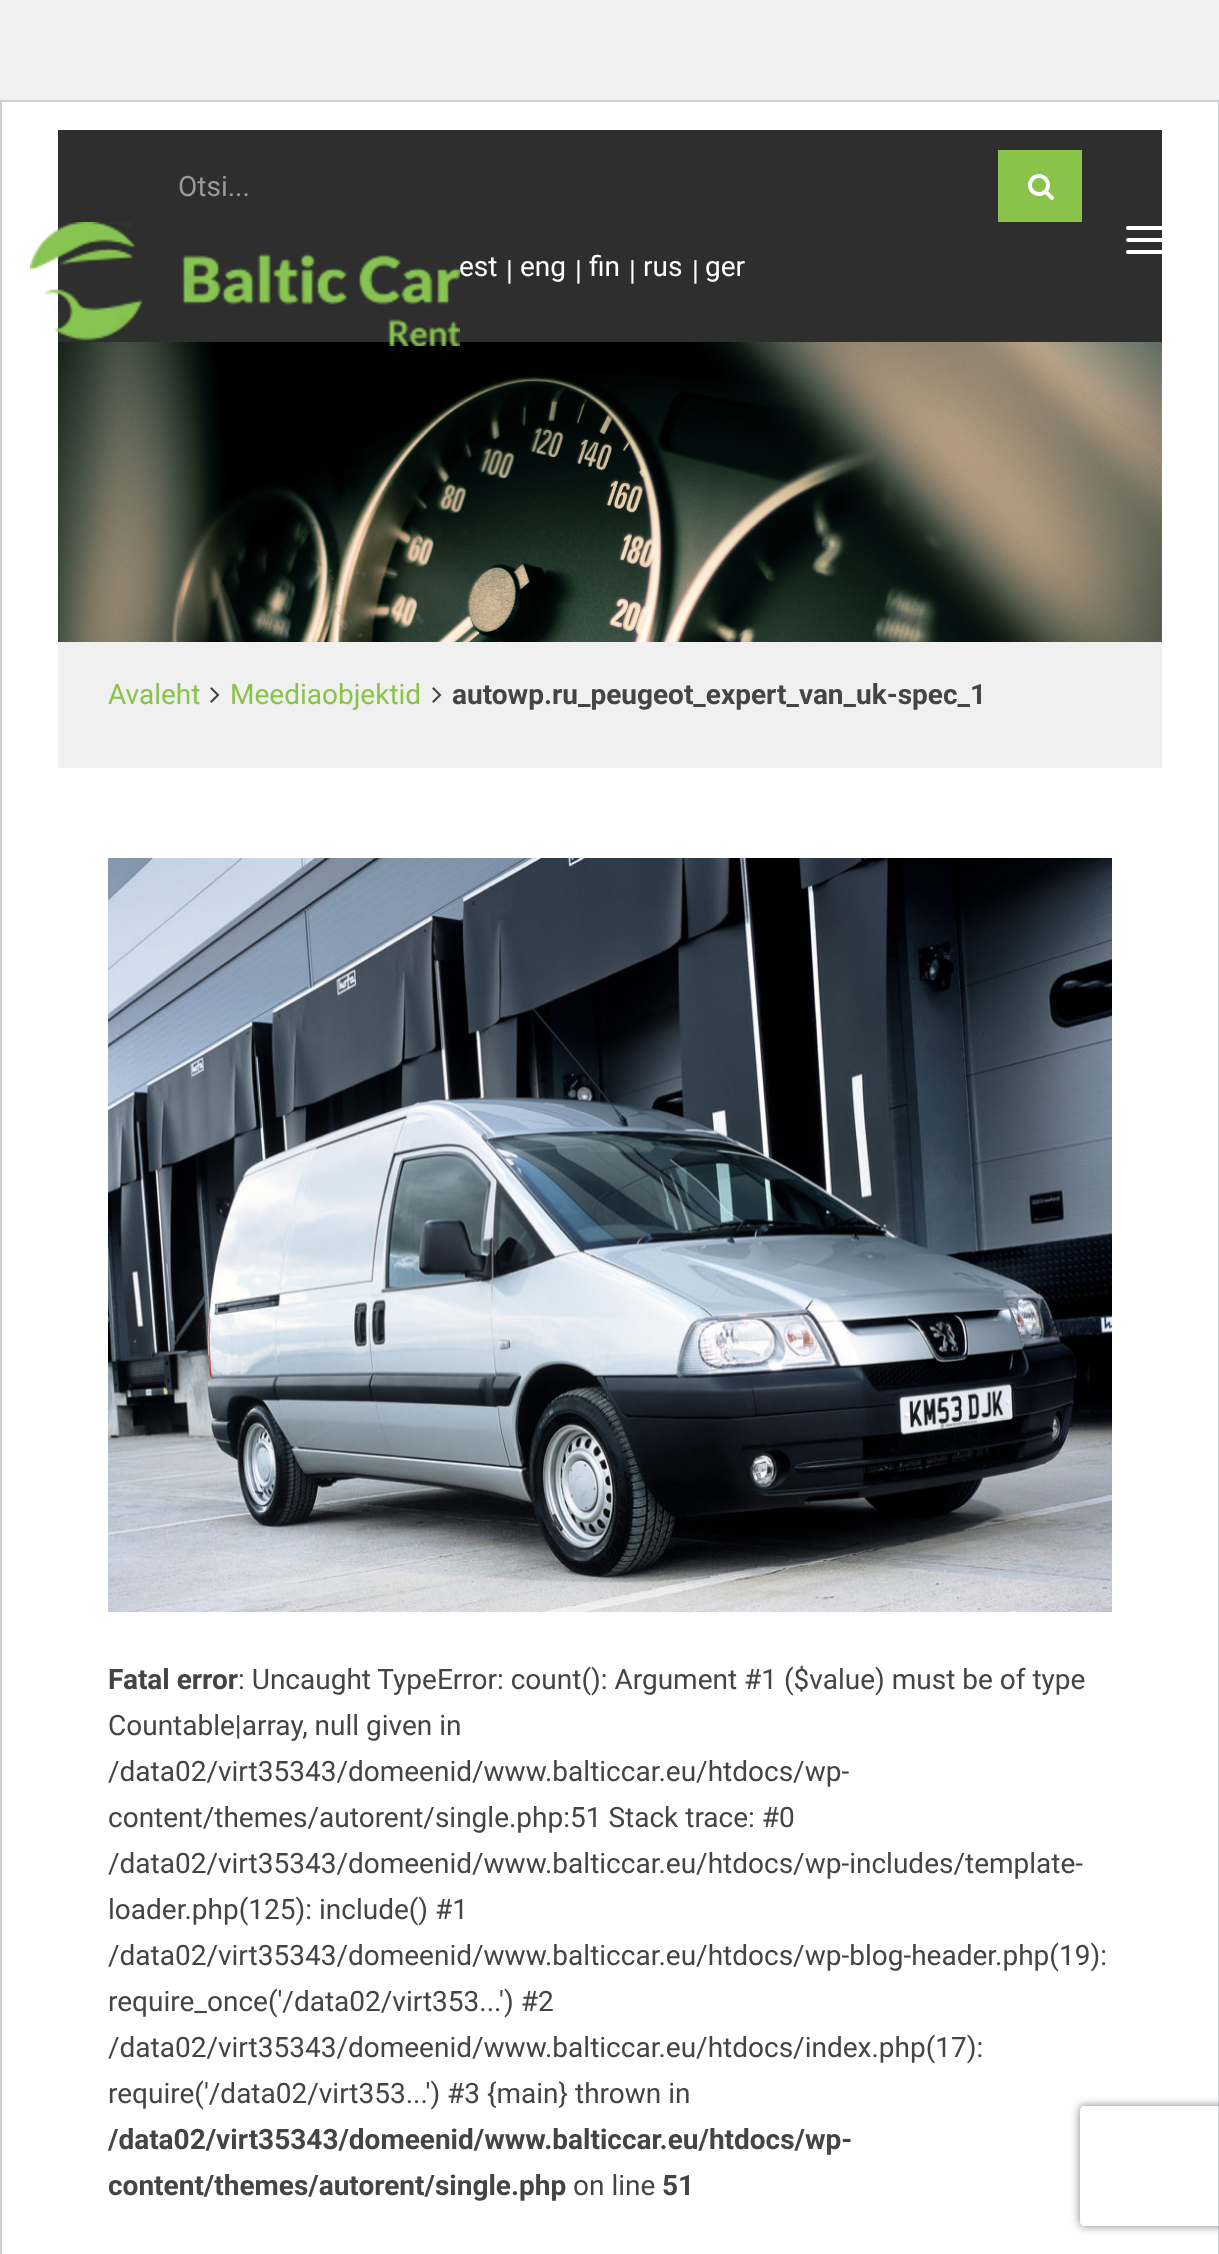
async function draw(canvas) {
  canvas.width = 1219;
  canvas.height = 2254;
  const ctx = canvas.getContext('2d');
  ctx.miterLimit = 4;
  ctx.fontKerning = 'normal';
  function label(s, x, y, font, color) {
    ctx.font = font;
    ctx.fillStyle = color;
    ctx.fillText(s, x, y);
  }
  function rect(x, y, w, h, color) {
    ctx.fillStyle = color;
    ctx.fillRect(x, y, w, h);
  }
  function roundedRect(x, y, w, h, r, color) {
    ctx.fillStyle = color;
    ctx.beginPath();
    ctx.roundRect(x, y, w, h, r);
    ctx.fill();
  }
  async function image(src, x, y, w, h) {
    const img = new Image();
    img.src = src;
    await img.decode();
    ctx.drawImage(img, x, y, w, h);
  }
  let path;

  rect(0, 0, 1219, 2254, '#f1f1f1');
  ctx.fillStyle = '#fff';
  ctx.beginPath();
  ctx.rect(1, 101, 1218, 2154);
  ctx.fill();
  ctx.strokeStyle = '#ccd0d4';
  ctx.lineWidth = 2;
  ctx.stroke();
  rect(58, 130, 1104, 212, '#2e2e2e');
  label('Otsi...', 178, 196, '28px Roboto', '#999');
  rect(998, 150, 84, 72, '#8ac349');
  await image('assets/img1.png', 1028, 174, 26, 26);
  label('est', 459, 276, '28px Roboto', '#fff');
  label('|', 506, 280, '28px Roboto', '#fff');
  label('eng', 520, 276, '28px Roboto', '#fff');
  label('|', 575, 280, '28px Roboto', '#fff');
  label('fin', 589, 276, '28px Roboto', '#fff');
  label('|', 629, 280, '28px Roboto', '#fff');
  label('rus', 643, 276, '28px Roboto', '#fff');
  label('|', 692, 280, '28px Roboto', '#fff');
  label('ger', 705, 276, '28px Roboto', '#fff');
  await image('assets/img3.png', 58, 342, 1104, 300);
  await image('assets/img2.png', 30, 222, 430, 124);
  roundedRect(1126, 226, 44, 4, 2, '#fff');
  roundedRect(1126, 238, 44, 4, 2, '#fff');
  roundedRect(1126, 250, 44, 4, 2, '#fff');
  rect(58, 642, 1104, 126, '#f1f0f1');
  label('Avaleht', 108, 704, '28px Roboto', '#8ac349');
  await image('assets/img4.png', 210, 687, 10, 16);
  label('Meediaobjektid', 230, 704, '28px Roboto', '#8ac349');
  await image('assets/img4.png', 432, 687, 10, 16);
  label('autowp.ru_peugeot_expert_van_uk-spec_1', 452, 704, 'bold 28px Roboto', '#444');
  await image('assets/img5.png', 108, 858, 1004, 754);
  label('Fatal error', 108, 1689, 'bold 28px Roboto', '#444');
  label(': Uncaught TypeError: count(): Argument #1 ($value) must be of type', 238, 1689, '28px Roboto', '#444');
  label('Countable|array, null given in', 108, 1735, '28px Roboto', '#444');
  label('/data02/virt35343/domeenid/www.balticcar.eu/htdocs/wp-', 108, 1781, '28px Roboto', '#444');
  label('content/themes/autorent/single.php:51 Stack trace: #0', 108, 1827, '28px Roboto', '#444');
  label('/data02/virt35343/domeenid/www.balticcar.eu/htdocs/wp-includes/template-', 108, 1873, '28px Roboto', '#444');
  label('loader.php(125): include() #1', 108, 1919, '28px Roboto', '#444');
  label('/data02/virt35343/domeenid/www.balticcar.eu/htdocs/wp-blog-header.php(19):', 108, 1965, '28px Roboto', '#444');
  label('require_once(\'/data02/virt353...\') #2', 108, 2011, '28px Roboto', '#444');
  label('/data02/virt35343/domeenid/www.balticcar.eu/htdocs/index.php(17):', 108, 2057, '28px Roboto', '#444');
  label('require(\'/data02/virt353...\') #3 {main} thrown in', 108, 2103, '28px Roboto', '#444');
  label('/data02/virt35343/domeenid/www.balticcar.eu/htdocs/wp-', 108, 2149, 'bold 28px Roboto', '#444');
  label('content/themes/autorent/single.php', 108, 2195, 'bold 28px Roboto', '#444');
  label('on line', 573, 2195, '28px Roboto', '#444');
  label('51', 662, 2195, 'bold 28px Roboto', '#444');
  ctx.save();
  path = new Path2D('M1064 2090H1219V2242H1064ZM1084 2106H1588C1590 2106 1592 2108 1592 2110V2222C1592 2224 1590 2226 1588 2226H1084C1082 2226 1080 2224 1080 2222V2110C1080 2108 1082 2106 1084 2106Z');
  ctx.clip(path, 'evenodd');
  ctx.fillStyle = '#808080';
  ctx.filter = 'blur(5px)';
  ctx.beginPath();
  ctx.roundRect(1080, 2106, 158, 120, 4);
  ctx.fill();
  ctx.filter = 'none';
  ctx.restore();
}

draw(document.querySelector('canvas'));
